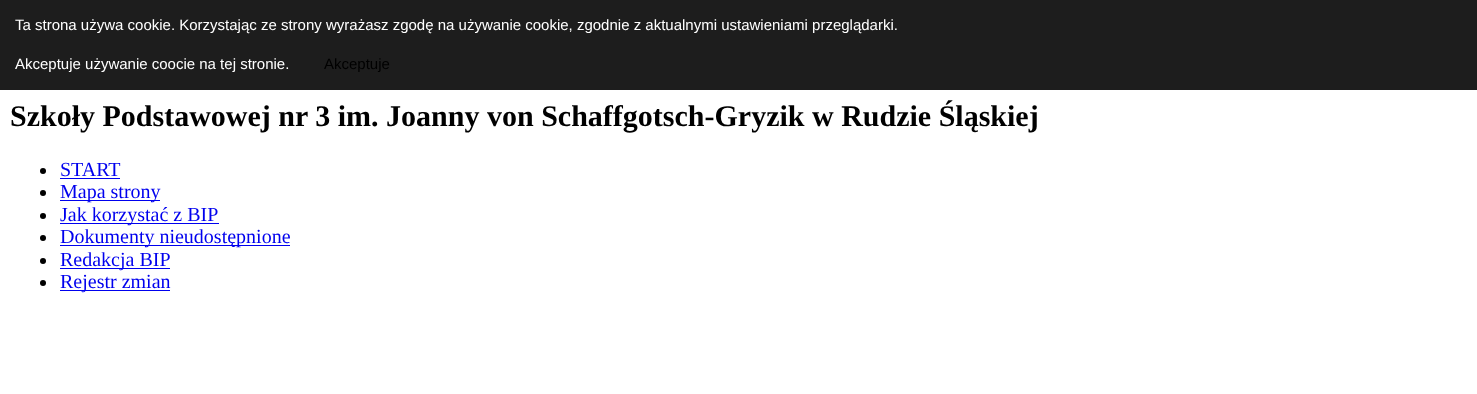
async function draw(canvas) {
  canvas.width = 1477;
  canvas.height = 394;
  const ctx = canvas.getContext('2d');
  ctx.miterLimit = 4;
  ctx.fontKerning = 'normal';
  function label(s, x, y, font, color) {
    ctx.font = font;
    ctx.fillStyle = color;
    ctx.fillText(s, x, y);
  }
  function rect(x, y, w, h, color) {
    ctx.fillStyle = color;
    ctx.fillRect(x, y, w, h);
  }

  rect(0, 0, 1477, 394, '#fff');
  rect(0, 0, 1477, 90, '#1d1d1d');
  label('Ta strona używa cookie. Korzystając ze strony wyrażasz zgodę na używanie cookie, zgodnie z aktualnymi ustawieniami przeglądarki.', 15, 30, '15px Liberation Sans', '#fff');
  label('Akceptuje używanie coocie na tej stronie.', 15, 69, '15px Liberation Sans', '#fff');
  label('Akceptuje', 324, 69, '15px Liberation Sans', '#000');
  label('Szkoły Podstawowej nr 3 im. Joanny von Schaffgotsch-Gryzik w Rudzie Śląskiej', 10, 126, 'bold 30px Liberation Serif', '#000');
  ctx.beginPath();
  ctx.arc(43, 171, 3, 0, 2 * Math.PI);
  ctx.fill();
  label('START', 60, 176, '20px Liberation Serif', '#00e');
  rect(60, 178, 60, 1, '#00e');
  ctx.fillStyle = '#000';
  ctx.beginPath();
  ctx.arc(43, 193, 3, 0, 2 * Math.PI);
  ctx.fill();
  rect(60, 200, 100, 1, '#00e');
  label('Mapa strony', 60, 198, '20px Liberation Serif', '#00e');
  ctx.fillStyle = '#000';
  ctx.beginPath();
  ctx.arc(43, 216, 3, 0, 2 * Math.PI);
  ctx.fill();
  rect(60, 223, 159, 1, '#00e');
  label('Jak korzystać z BIP', 60, 221, '20px Liberation Serif', '#00e');
  ctx.fillStyle = '#000';
  ctx.beginPath();
  ctx.arc(43, 238, 3, 0, 2 * Math.PI);
  ctx.fill();
  rect(60, 245, 230, 1, '#00e');
  label('Dokumenty nieudostępnione', 60, 243, '20px Liberation Serif', '#00e');
  ctx.fillStyle = '#000';
  ctx.beginPath();
  ctx.arc(43, 261, 3, 0, 2 * Math.PI);
  ctx.fill();
  rect(60, 268, 110, 1, '#00e');
  label('Redakcja BIP', 60, 266, '20px Liberation Serif', '#00e');
  ctx.fillStyle = '#000';
  ctx.beginPath();
  ctx.arc(43, 283, 3, 0, 2 * Math.PI);
  ctx.fill();
  rect(60, 290, 110, 1, '#00e');
  label('Rejestr zmian', 60, 288, '20px Liberation Serif', '#00e');
}

draw(document.querySelector('canvas'));
